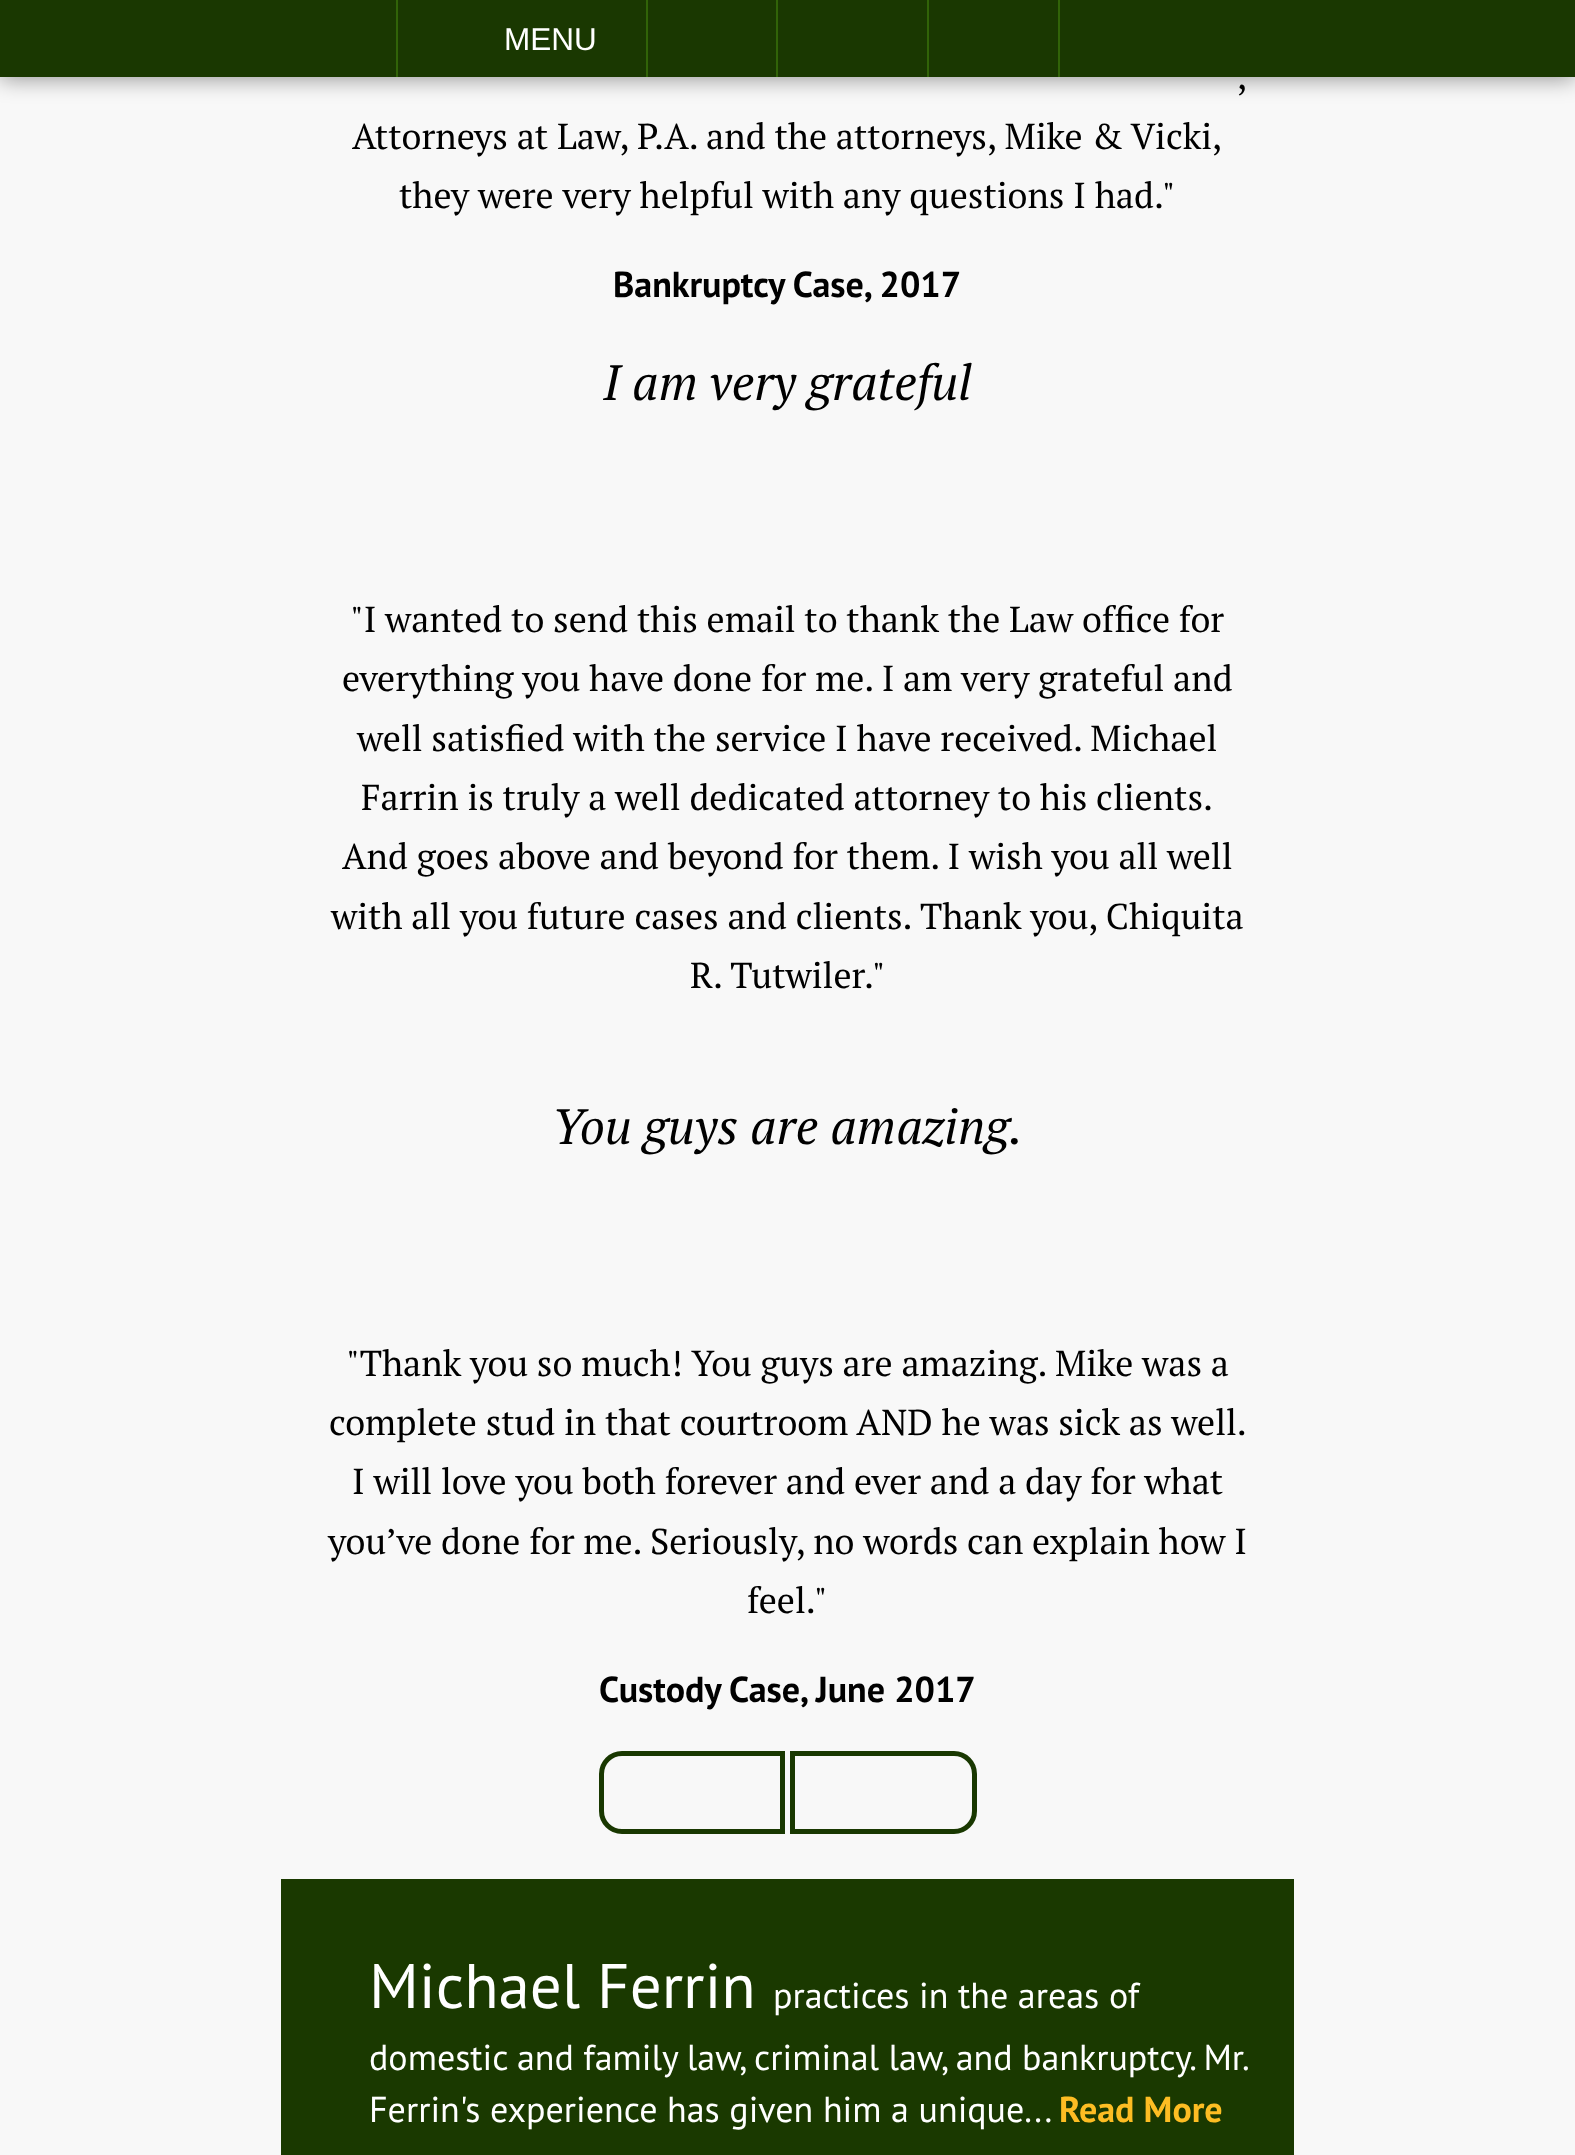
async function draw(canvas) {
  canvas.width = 1575;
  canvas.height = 2155;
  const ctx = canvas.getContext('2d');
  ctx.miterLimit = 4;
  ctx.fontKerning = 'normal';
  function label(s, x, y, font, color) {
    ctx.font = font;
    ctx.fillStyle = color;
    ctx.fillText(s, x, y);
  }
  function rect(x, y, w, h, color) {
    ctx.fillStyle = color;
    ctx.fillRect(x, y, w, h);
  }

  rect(0, 0, 1575, 2155, '#f8f8f8');
  ctx.fillStyle = '#00000066';
  ctx.filter = 'blur(11px)';
  ctx.beginPath();
  ctx.rect(0, 2, 1575, 77);
  ctx.fill();
  ctx.filter = 'none';
  rect(0, 0, 1575, 77, '#1a3801');
  rect(646, 0, 2, 77, '#316308');
  rect(396, 0, 2, 77, '#316308');
  label('MENU', 504, 50, '31.5px Liberation Sans', '#fff');
  rect(776, 0, 2, 77, '#316308');
  rect(927, 0, 2, 77, '#316308');
  rect(1058, 0, 2, 77, '#316308');
  label(',', 1237, 89, '36px PT Serif', '#000');
  label('Attorneys at Law, P.A. and the attorneys, Mike & Vicki,', 352, 149, '36px PT Serif', '#000');
  label('they were very helpful with any questions I had."', 399, 208, '36px PT Serif', '#000');
  label('Bankruptcy Case, 2017', 613, 297, 'bold 36px PT Sans', '#000');
  label('I am very grateful', 603, 400, 'italic 49.5px PT Serif', '#000');
  label('"I wanted to send this email to thank the Law office for', 350, 632, '36px PT Serif', '#000');
  label('everything you have done for me. I am very grateful and', 342, 691, '36px PT Serif', '#000');
  label('well satisfied with the service I have received. Michael', 357, 751, '36px PT Serif', '#000');
  label('Farrin is truly a well dedicated attorney to his clients.', 361, 810, '36px PT Serif', '#000');
  label('And goes above and beyond for them. I wish you all well', 342, 869, '36px PT Serif', '#000');
  label('with all you future cases and clients. Thank you, Chiquita', 331, 929, '36px PT Serif', '#000');
  label('R. Tutwiler."', 690, 988, '36px PT Serif', '#000');
  label('You guys are amazing.', 552, 1144, 'italic 49.5px PT Serif', '#000');
  label('"Thank you so much! You guys are amazing. Mike was a', 346, 1376, '36px PT Serif', '#000');
  label('complete stud in that courtroom AND he was sick as well.', 329, 1435, '36px PT Serif', '#000');
  label('I will love you both forever and ever and a day for what', 352, 1494, '36px PT Serif', '#000');
  label('you’ve done for me. Seriously, no words can explain how I', 328, 1554, '36px PT Serif', '#000');
  label('feel."', 747, 1613, '36px PT Serif', '#000');
  label('Custody Case, June 2017', 599, 1702, 'bold 36px PT Sans', '#000');
  ctx.beginPath();
  ctx.roundRect(601.5, 1753.5, 181, 78, [20.5, 0, 0, 20.5]);
  ctx.strokeStyle = '#193801';
  ctx.lineWidth = 5;
  ctx.stroke();
  ctx.beginPath();
  ctx.roundRect(792.5, 1753.5, 182, 78, [0, 20.5, 20.5, 0]);
  ctx.stroke();
  rect(281, 1879, 1013, 276, '#1a3900');
  label('Michael Ferrin', 369, 2008, '63px PT Sans', '#fff');
  label('practices in the areas of', 773, 2008, '36px PT Sans', '#fff');
  ctx.wordSpacing = '-0.25px';
  label('domestic and family law, criminal law, and bankruptcy. Mr.', 369, 2070, '36px PT Sans', '#fff');
  ctx.wordSpacing = '0px';
  label('Ferrin\'s experience has given him a unique...', 369, 2122, '36px PT Sans', '#fff');
  label('Read More', 1059, 2122, 'bold 36px PT Sans', '#fdbd23');
}

draw(document.querySelector('canvas'));
